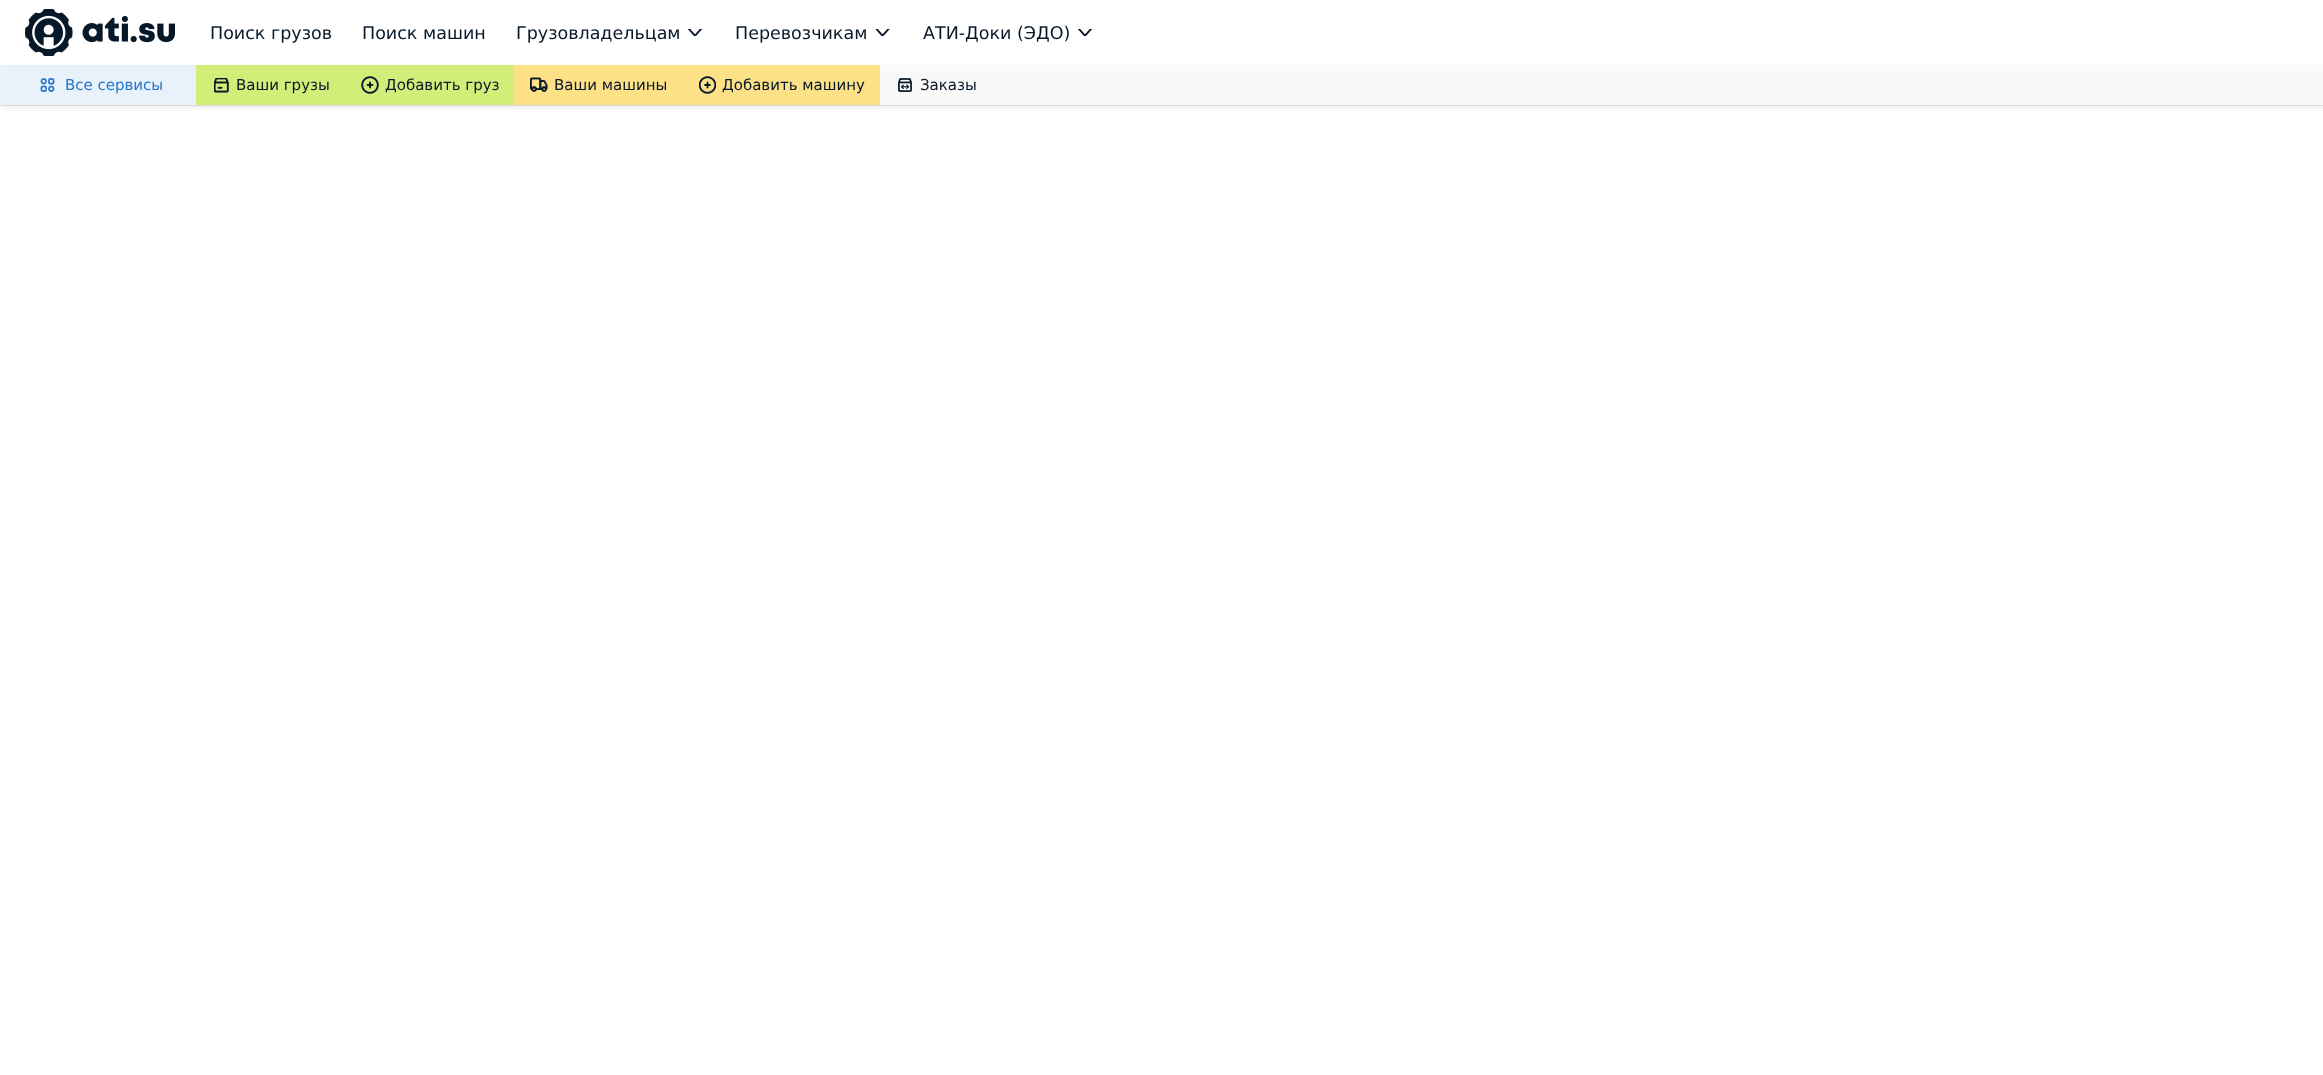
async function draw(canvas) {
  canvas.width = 2323;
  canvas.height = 1075;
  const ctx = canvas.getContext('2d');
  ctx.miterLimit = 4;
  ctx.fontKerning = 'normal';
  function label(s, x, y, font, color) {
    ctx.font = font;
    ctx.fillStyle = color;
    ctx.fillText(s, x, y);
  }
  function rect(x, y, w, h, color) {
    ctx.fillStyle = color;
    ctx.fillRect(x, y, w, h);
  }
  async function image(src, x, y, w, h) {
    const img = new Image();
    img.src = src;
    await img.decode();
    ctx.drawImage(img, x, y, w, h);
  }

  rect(0, 0, 2323, 1075, '#fff');
  await image('assets/img1.png', 25, 9, 150, 47);
  label('Поиск грузов', 210, 39, '17.5px DejaVu Sans', '#071829');
  label('Поиск машин', 362, 39, '17.5px DejaVu Sans', '#071829');
  label('Грузовладельцам', 516, 39, '17.5px DejaVu Sans', '#071829');
  await image('assets/img2.png', 688, 29, 15, 7);
  label('Перевозчикам', 735, 39, '17.5px DejaVu Sans', '#071829');
  await image('assets/img3.png', 875, 29, 15, 7);
  label('АТИ-Доки (ЭДО)', 923, 39, '17.5px DejaVu Sans', '#071829');
  await image('assets/img2.png', 1078, 29, 15, 7);
  rect(0, 105, 2323, 1, '#e6e8ea');
  ctx.fillStyle = '#07182914';
  ctx.filter = 'blur(2.5px)';
  ctx.beginPath();
  ctx.rect(0, 68, 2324, 40);
  ctx.fill();
  ctx.filter = 'none';
  rect(880, 65, 1443, 40, '#f9f9fa');
  rect(0, 65, 196, 40, '#e9f1fa');
  await image('assets/img4.png', 40, 78, 15, 14);
  label('Все сервисы', 65, 90, '15px DejaVu Sans', '#27c');
  rect(196, 65, 318, 40, '#d3ee78');
  await image('assets/img5.png', 214, 78, 15, 15);
  label('Ваши грузы', 236, 90, '15px DejaVu Sans', '#071829');
  await image('assets/img6.png', 361, 76, 18, 18);
  label('Добавить груз', 385, 90, '15px DejaVu Sans', '#071829');
  rect(514, 65, 366, 40, '#fde186');
  await image('assets/img7.png', 530, 77, 18, 15);
  label('Ваши машины', 554, 90, '15px DejaVu Sans', '#071829');
  await image('assets/img8.png', 699, 76, 17, 18);
  label('Добавить машину', 722, 90, '15px DejaVu Sans', '#071829');
  await image('assets/img9.png', 898, 78, 14, 14);
  label('Заказы', 920, 90, '15px DejaVu Sans', '#071829');
}

draw(document.querySelector('canvas'));
